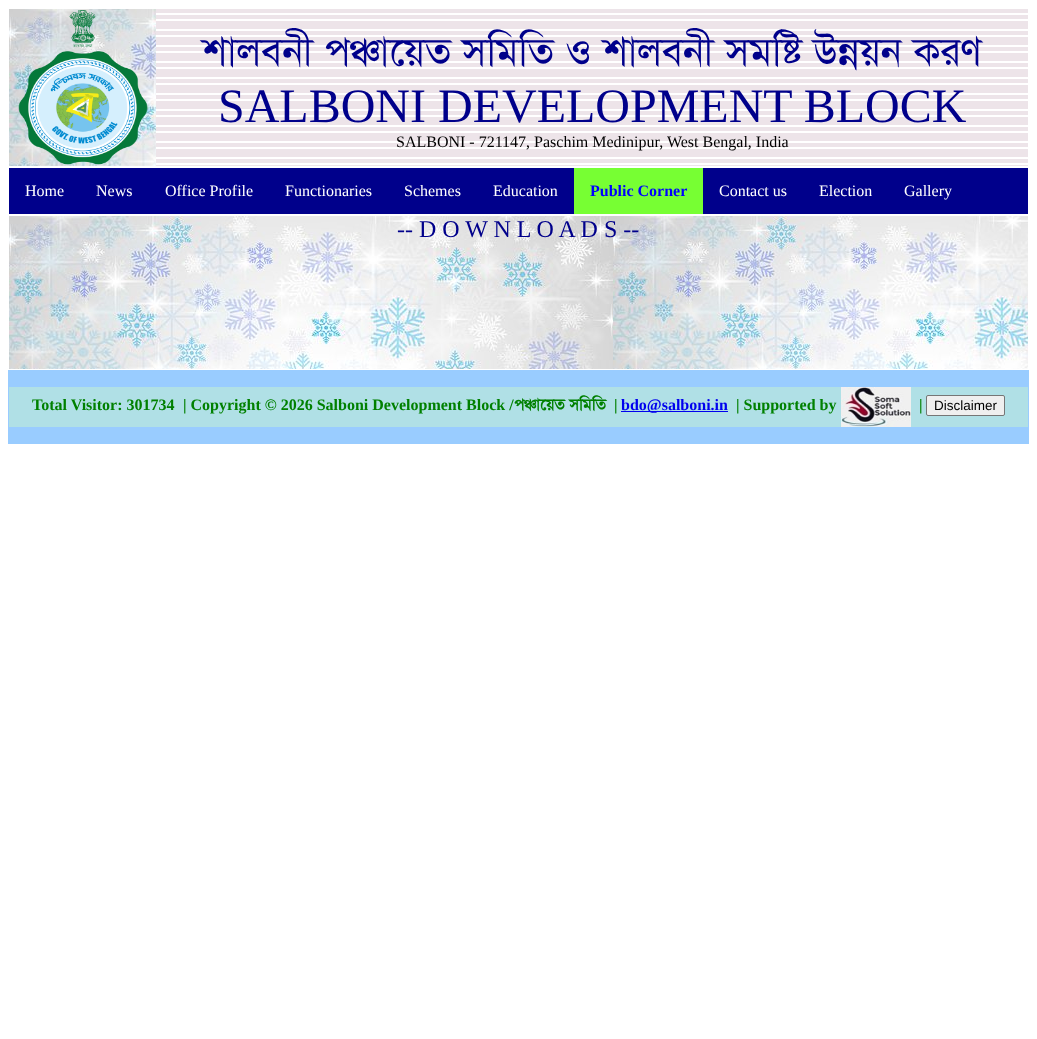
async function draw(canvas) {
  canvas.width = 1037;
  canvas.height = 1039;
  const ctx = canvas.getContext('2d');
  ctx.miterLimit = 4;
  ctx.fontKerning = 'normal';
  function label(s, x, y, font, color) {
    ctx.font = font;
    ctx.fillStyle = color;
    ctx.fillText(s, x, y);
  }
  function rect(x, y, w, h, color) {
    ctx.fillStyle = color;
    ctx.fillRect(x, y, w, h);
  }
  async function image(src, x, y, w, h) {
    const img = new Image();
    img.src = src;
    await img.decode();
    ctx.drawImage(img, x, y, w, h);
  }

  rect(0, 0, 1037, 1039, '#fff');
  await image('assets/img1.png', 9, 9, 147, 157);
  await image('assets/img2.png', 18, 10, 130, 155);
  await image('assets/img3.png', 156, 9, 872, 157);
  label('শালবনী পঞ্চায়েত সমিতি ও শালবনী সমষ্টি উন্নয়ন করণ', 202, 65, '40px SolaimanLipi', '#00008b');
  label('SALBONI DEVELOPMENT BLOCK', 218, 122, '48px Liberation Serif', '#00008b');
  label('SALBONI - 721147, Paschim Medinipur, West Bengal, India', 396, 147, '16px Liberation Serif', '#000');
  rect(9, 168, 1019, 46, '#00008b');
  label('Home', 25, 196, '16px Liberation Serif', '#fff');
  label('News', 96, 196, '16px Liberation Serif', '#fff');
  label('Office Profile', 165, 196, '16px Liberation Serif', '#fff');
  label('Functionaries', 285, 196, '16px Liberation Serif', '#fff');
  label('Schemes', 404, 196, '16px Liberation Serif', '#fff');
  label('Education', 493, 196, '16px Liberation Serif', '#fff');
  rect(574, 168, 129, 46, '#7f3');
  label('Public Corner', 590, 196, 'bold 16px Liberation Serif', '#00f');
  label('Contact us', 719, 196, '16px Liberation Serif', '#fff');
  label('Election', 819, 196, '16px Liberation Serif', '#fff');
  label('Gallery', 904, 196, '16px Liberation Serif', '#fff');
  await image('assets/img4.png', 9, 216, 1019, 153);
  label('-- D O W N L O A D S --', 397, 237, '24px Liberation Serif', '#00008b');
  rect(8, 370, 1021, 74, '#9cf');
  rect(9, 387, 1019, 40, '#b0e0e6');
  label('Total Visitor: 301734', 32, 410, 'bold 16px Liberation Serif', '#008000');
  label('| Copyright © 2026 Salboni Development Block /', 183, 410, 'bold 16px Liberation Serif', '#008000');
  label('পঞ্চায়েত সমিতি', 514, 410, 'bold 16px SolaimanLipi', '#008000');
  label('|', 614, 410, 'bold 16px Liberation Serif', '#008000');
  rect(621, 411, 107, 1, '#00e');
  label('bdo@salboni.in', 621, 410, 'bold 16px Liberation Serif', '#00e');
  label('| Supported by', 736, 410, 'bold 16px Liberation Serif', '#008000');
  await image('assets/img5.png', 841, 387, 70, 40);
  label('|', 919, 410, 'bold 16px Liberation Serif', '#008000');
  ctx.fillStyle = '#efefef';
  ctx.beginPath();
  ctx.roundRect(926.5, 395.5, 78, 20, 1.5);
  ctx.fill();
  ctx.strokeStyle = '#767676';
  ctx.stroke();
  label('Disclaimer', 934, 410, '13.5px Liberation Sans', '#000');
}

draw(document.querySelector('canvas'));
